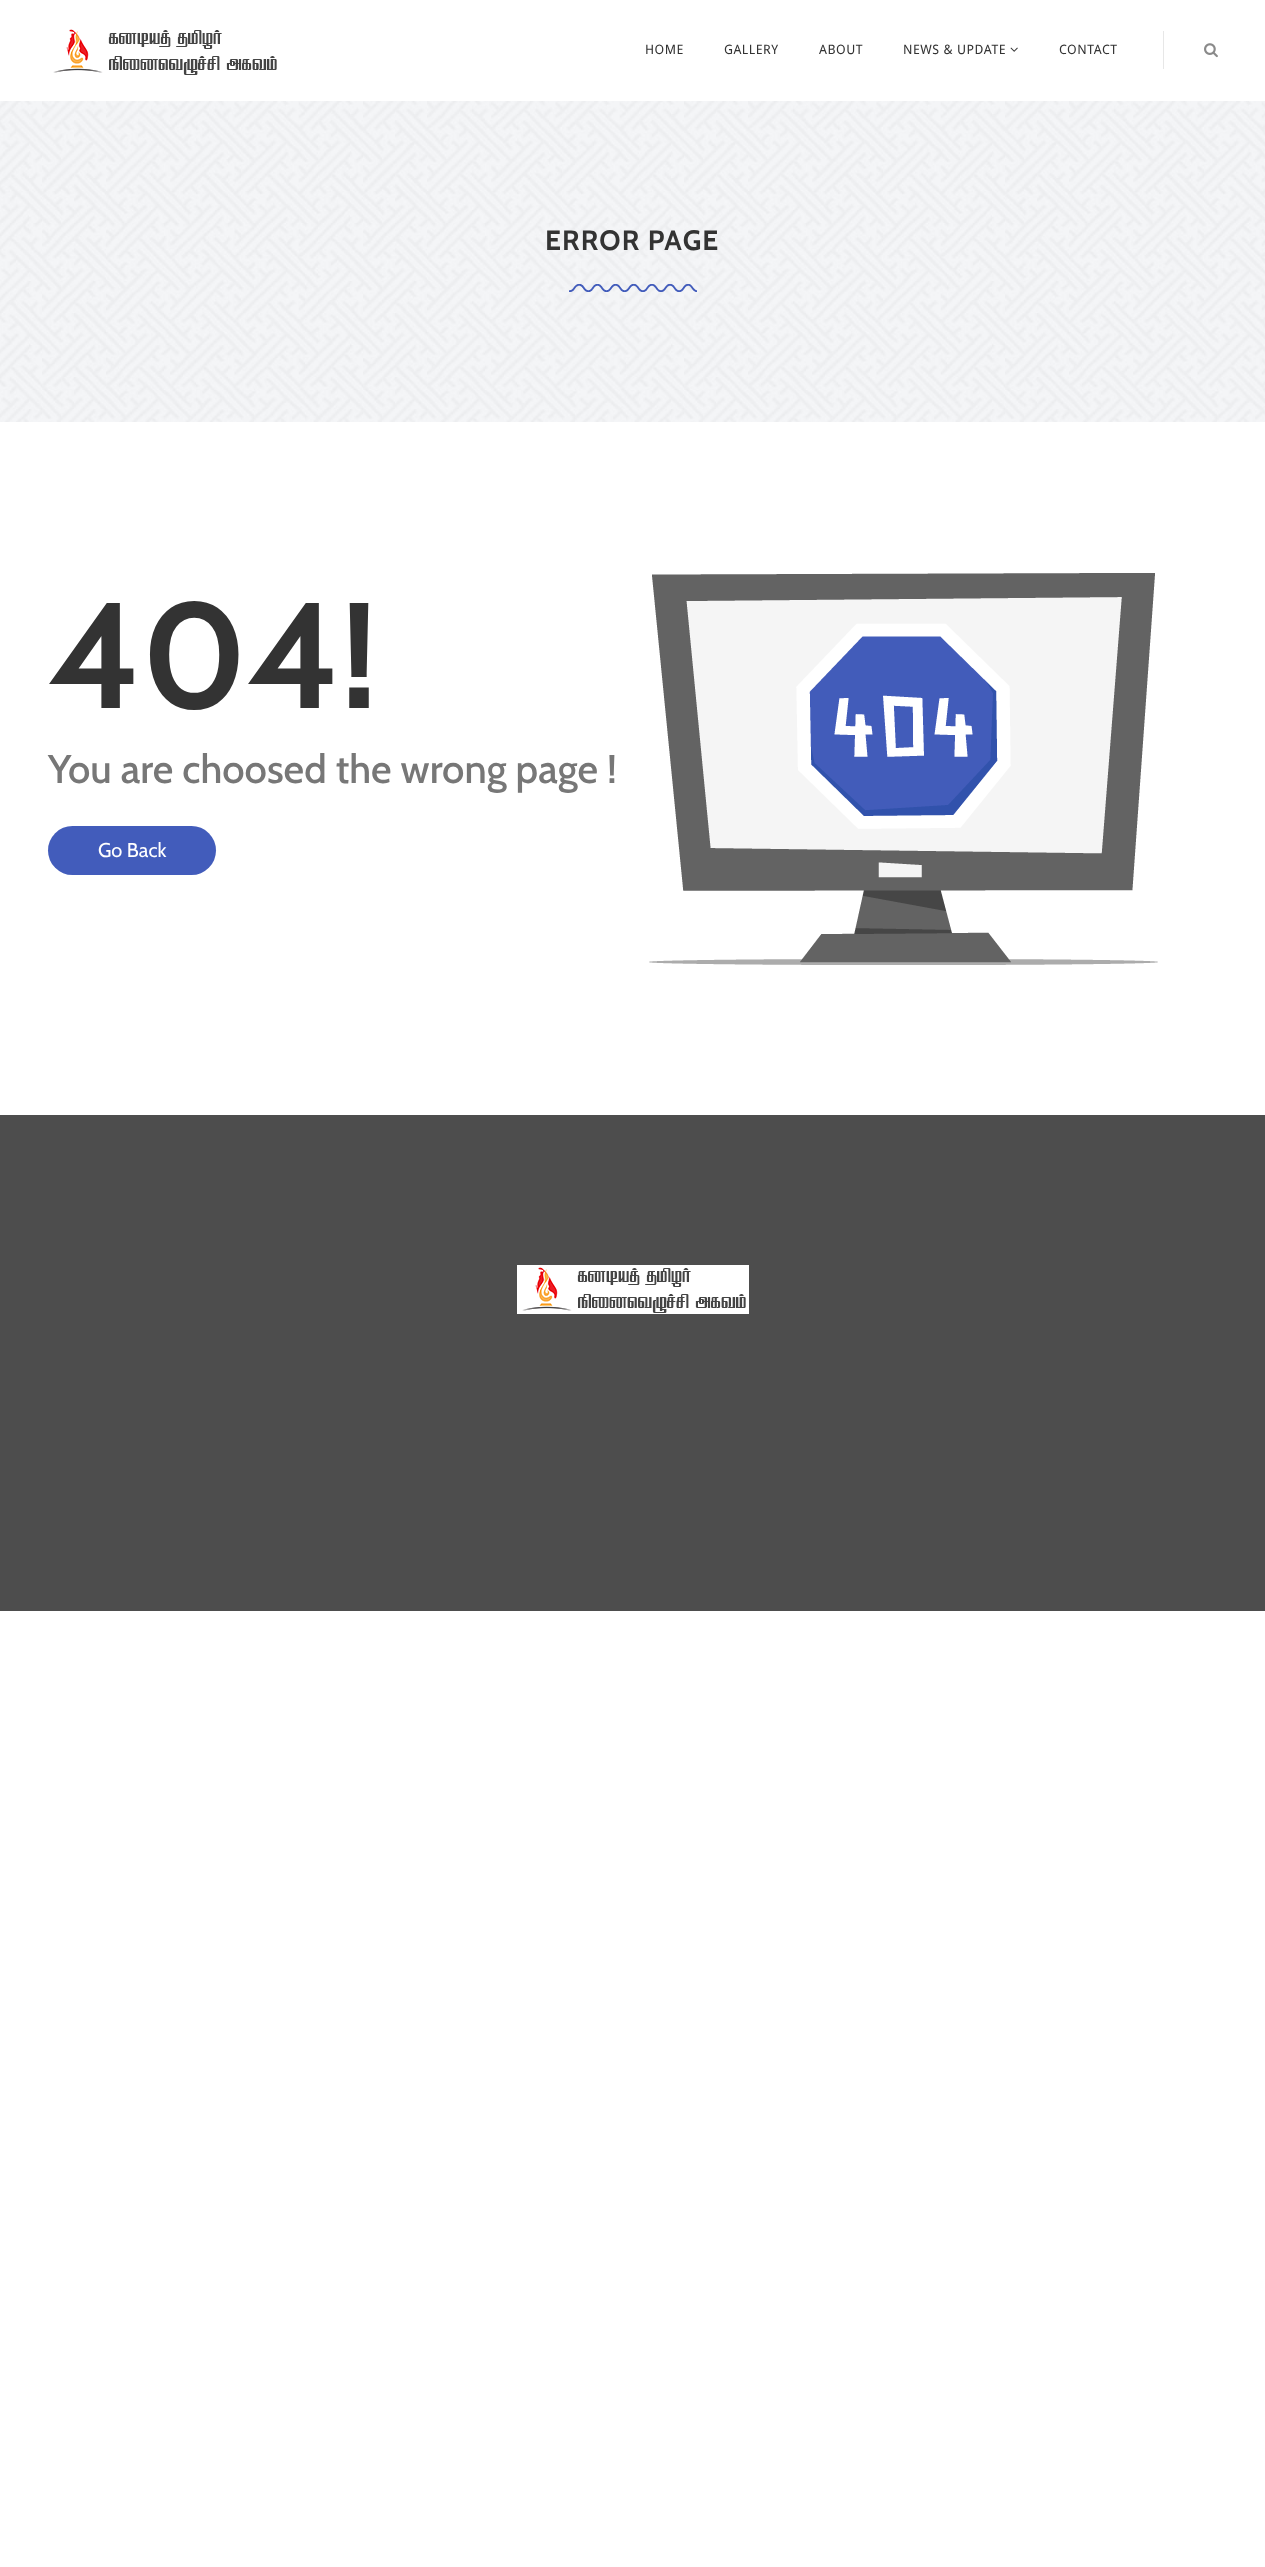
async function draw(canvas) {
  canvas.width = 1265;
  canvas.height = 2567;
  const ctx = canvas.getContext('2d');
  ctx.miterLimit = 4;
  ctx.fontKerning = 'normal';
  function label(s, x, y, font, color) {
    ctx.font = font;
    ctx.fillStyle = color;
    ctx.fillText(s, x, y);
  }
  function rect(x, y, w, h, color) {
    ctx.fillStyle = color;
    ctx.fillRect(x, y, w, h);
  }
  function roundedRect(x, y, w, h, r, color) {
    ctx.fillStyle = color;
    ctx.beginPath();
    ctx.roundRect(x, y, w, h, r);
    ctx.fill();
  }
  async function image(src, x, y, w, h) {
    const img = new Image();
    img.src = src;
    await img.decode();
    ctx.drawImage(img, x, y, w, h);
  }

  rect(0, 0, 1265, 2567, '#fff');
  await image('assets/img1.png', 53, 29, 224, 46);
  ctx.letterSpacing = '0.5px';
  label('HOME', 645, 54, '13px Droid Sans', '#333');
  label('GALLERY', 724, 54, '13px Droid Sans', '#333');
  label('ABOUT', 819, 54, '13px Droid Sans', '#333');
  label('NEWS & UPDATE', 903, 54, '13px Droid Sans', '#333');
  await image('assets/img2.png', 1010, 47, 8, 5);
  label('CONTACT', 1059, 54, '13px Droid Sans', '#333');
  rect(1163, 31, 1, 38, '#e7e7e7');
  await image('assets/img3.png', 1204, 43, 14, 15);
  await image('assets/img4.png', 0, 101, 1265, 321);
  await image('assets/img5.png', 569, 284, 128, 8);
  ctx.letterSpacing = '1.1px';
  label('ERROR PAGE', 545, 250, 'bold 28px Cabin', '#333');
  ctx.letterSpacing = '0px';
  label('404!', 48, 708, 'bold 150px Cabin', '#333');
  label('You are choosed the wrong page !', 48, 783, '500 40px Cabin', '#777');
  roundedRect(48, 826, 168, 49, 24.5, '#425cbb');
  label('Go Back', 98, 857, '20px Cabin', '#fff');
  await image('assets/img6.png', 649, 573, 509, 392);
  rect(0, 1115, 1265, 496, '#4d4d4d');
  await image('assets/img7.png', 517, 1265, 232, 49);
}

draw(document.querySelector('canvas'));
